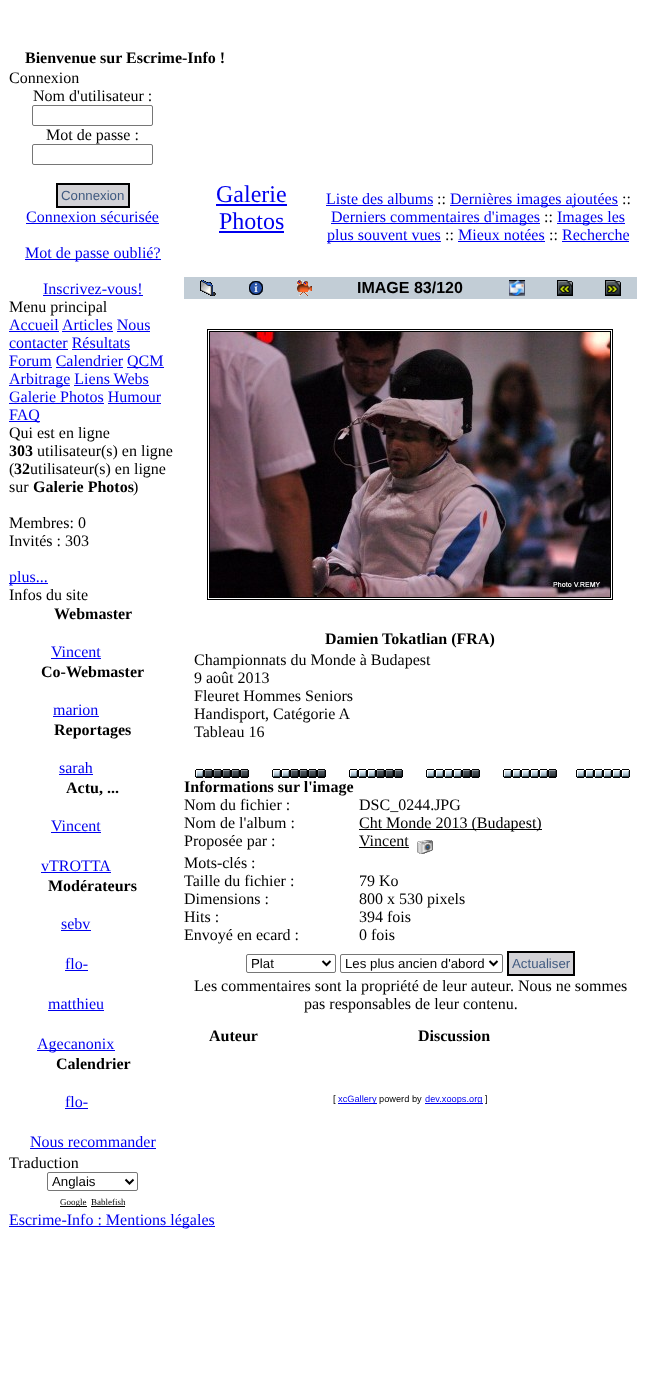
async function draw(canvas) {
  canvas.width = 651;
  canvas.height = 1380;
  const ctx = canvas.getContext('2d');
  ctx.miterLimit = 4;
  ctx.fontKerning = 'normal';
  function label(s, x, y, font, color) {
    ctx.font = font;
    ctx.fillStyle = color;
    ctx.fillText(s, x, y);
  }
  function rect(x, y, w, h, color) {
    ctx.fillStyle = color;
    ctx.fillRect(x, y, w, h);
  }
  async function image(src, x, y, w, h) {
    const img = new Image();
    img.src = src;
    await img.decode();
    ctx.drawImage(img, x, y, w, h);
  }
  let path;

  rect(0, 0, 651, 1380, '#fff');
  label('Bienvenue sur Escrime-Info !', 25, 63, 'bold 16px Liberation Serif', '#000');
  label('Connexion', 9, 83, '16px Liberation Serif', '#000');
  label('Nom d\'utilisateur :', 33, 101, '16px Liberation Serif', '#000');
  ctx.beginPath();
  ctx.roundRect(32.5, 105.5, 120, 20, 1.5);
  ctx.strokeStyle = '#767676';
  ctx.stroke();
  label('Mot de passe :', 46, 140, '16px Liberation Serif', '#000');
  ctx.beginPath();
  ctx.roundRect(32.5, 144.5, 120, 20, 1.5);
  ctx.stroke();
  ctx.fillStyle = '#d3d2d6';
  ctx.beginPath();
  ctx.rect(57, 184, 72, 23);
  ctx.fill();
  ctx.strokeStyle = '#000';
  ctx.lineWidth = 2;
  ctx.stroke();
  label('Connexion', 61, 200, '13.25px Liberation Sans', '#405a80');
  label('Connexion sécurisée', 26, 222, '16px Liberation Serif', '#00e');
  rect(26, 223, 133, 1, '#00e');
  rect(25, 259, 136, 1, '#00e');
  label('Mot de passe oublié?', 25, 258, '16px Liberation Serif', '#00e');
  label('Inscrivez-vous!', 43, 294, '16px Liberation Serif', '#00e');
  rect(43, 295, 100, 1, '#00e');
  label('Menu principal', 9, 312, '16px Liberation Serif', '#000');
  label('Accueil', 9, 330, '16px Liberation Serif', '#00e');
  rect(9, 331, 50, 1, '#00e');
  label('Articles Nous', 62, 330, '16px Liberation Serif', '#00e');
  rect(62, 331, 51, 1, '#00e');
  label('contacter Résultats', 9, 348, '16px Liberation Serif', '#00e');
  rect(117, 331, 33, 1, '#00e');
  rect(9, 349, 59, 1, '#00e');
  rect(72, 349, 58, 1, '#00e');
  label('Forum Calendrier', 9, 366, '16px Liberation Serif', '#00e');
  rect(9, 367, 43, 1, '#00e');
  rect(127, 367, 37, 1, '#00e');
  label('QCM', 127, 366, '16px Liberation Serif', '#00e');
  rect(56, 367, 67, 1, '#00e');
  rect(9, 385, 61, 1, '#00e');
  label('Arbitrage Liens Webs', 9, 384, '16px Liberation Serif', '#00e');
  rect(74, 385, 75, 1, '#00e');
  label('Galerie Photos Humour', 9, 402, '16px Liberation Serif', '#00e');
  rect(9, 403, 95, 1, '#00e');
  rect(108, 403, 53, 1, '#00e');
  rect(9, 421, 31, 1, '#00e');
  label('FAQ', 9, 420, '16px Liberation Serif', '#00e');
  label('Qui est en ligne', 9, 438, '16px Liberation Serif', '#000');
  label('303', 9, 456, 'bold 16px Liberation Serif', '#000');
  label('utilisateur(s) en ligne', 37, 456, '16px Liberation Serif', '#000');
  label('(', 9, 474, '16px Liberation Serif', '#000');
  label('32', 14, 474, 'bold 16px Liberation Serif', '#000');
  label('utilisateur(s) en ligne', 30, 474, '16px Liberation Serif', '#000');
  label('sur', 9, 492, '16px Liberation Serif', '#000');
  label('Galerie Photos', 33, 492, 'bold 16px Liberation Serif', '#000');
  label(')', 133, 492, '16px Liberation Serif', '#000');
  label('Membres: 0', 9, 528, '16px Liberation Serif', '#000');
  label('Invités : 303', 9, 546, '16px Liberation Serif', '#000');
  rect(9, 583, 39, 1, '#00e');
  label('plus...', 9, 582, '16px Liberation Serif', '#00e');
  label('Infos du site', 9, 600, '16px Liberation Serif', '#000');
  label('Webmaster', 54, 619, 'bold 16px Liberation Serif', '#000');
  label('Vincent', 51, 657, '16px Liberation Serif', '#00e');
  rect(51, 658, 50, 1, '#00e');
  label('Co-Webmaster', 41, 677, 'bold 16px Liberation Serif', '#000');
  label('marion', 53, 715, '16px Liberation Serif', '#00e');
  rect(53, 716, 46, 1, '#00e');
  label('Reportages', 54, 735, 'bold 16px Liberation Serif', '#000');
  label('sarah', 59, 773, '16px Liberation Serif', '#00e');
  rect(59, 774, 34, 1, '#00e');
  label('Actu, ...', 66, 793, 'bold 16px Liberation Serif', '#000');
  label('Vincent', 51, 831, '16px Liberation Serif', '#00e');
  rect(51, 832, 50, 1, '#00e');
  label('vTROTTA', 41, 871, '16px Liberation Serif', '#00e');
  rect(41, 872, 70, 1, '#00e');
  label('Modérateurs', 48, 891, 'bold 16px Liberation Serif', '#000');
  label('sebv', 61, 929, '16px Liberation Serif', '#00e');
  rect(61, 930, 30, 1, '#00e');
  label('flo-', 65, 969, '16px Liberation Serif', '#00e');
  rect(65, 970, 23, 1, '#00e');
  label('matthieu', 48, 1009, '16px Liberation Serif', '#00e');
  rect(48, 1010, 56, 1, '#00e');
  rect(37, 1050, 78, 1, '#00e');
  label('Agecanonix', 37, 1049, '16px Liberation Serif', '#00e');
  label('Calendrier', 56, 1069, 'bold 16px Liberation Serif', '#000');
  label('flo-', 65, 1107, '16px Liberation Serif', '#00e');
  rect(65, 1108, 23, 1, '#00e');
  label('Nous recommander', 30, 1147, '16px Liberation Serif', '#00e');
  rect(30, 1148, 126, 1, '#00e');
  label('Traduction', 9, 1168, '16px Liberation Serif', '#000');
  ctx.beginPath();
  ctx.roundRect(47.5, 1172.5, 90, 18, 1.5);
  ctx.strokeStyle = '#767676';
  ctx.lineWidth = 1;
  ctx.stroke();
  path = new Path2D('M125.5 1179.5L129.5 1183.5L133.5 1179.5');
  ctx.strokeStyle = '#000';
  ctx.lineWidth = 2;
  ctx.stroke(path);
  label('Anglais', 52, 1186, '13.25px Liberation Sans', '#000');
  rect(60, 1206, 27, 1, '#000');
  label('Google', 60, 1205, '9px Liberation Serif', '#000');
  label('Bablefish', 91, 1205, '9px Liberation Serif', '#000');
  rect(91, 1206, 34, 1, '#000');
  label('Galerie', 216, 202, '24px Liberation Serif', '#00e');
  rect(216, 204, 71, 2, '#00e');
  label('Photos', 219, 229, '24px Liberation Serif', '#00e');
  rect(219, 231, 65, 2, '#00e');
  label('Liste des albums', 326, 204, '16px Liberation Serif', '#00e');
  rect(326, 205, 107, 1, '#00e');
  label('::', 437, 204, '16px Liberation Serif', '#000');
  rect(450, 205, 168, 1, '#00e');
  label('Dernières images ajoutées', 450, 204, '16px Liberation Serif', '#00e');
  label('::', 622, 204, '16px Liberation Serif', '#000');
  rect(331, 223, 209, 1, '#00e');
  label('Derniers commentaires d\'images', 331, 222, '16px Liberation Serif', '#00e');
  label('::', 544, 222, '16px Liberation Serif', '#000');
  rect(557, 223, 68, 1, '#00e');
  label('Images les', 557, 222, '16px Liberation Serif', '#00e');
  rect(327, 241, 114, 1, '#00e');
  label('plus souvent vues', 327, 240, '16px Liberation Serif', '#00e');
  label('::', 445, 240, '16px Liberation Serif', '#000');
  label('Mieux notées', 458, 240, '16px Liberation Serif', '#00e');
  rect(458, 241, 87, 1, '#00e');
  label('::', 549, 240, '16px Liberation Serif', '#000');
  label('Recherche', 562, 240, '16px Liberation Serif', '#00e');
  rect(562, 241, 67, 1, '#00e');
  rect(184, 277, 453, 22, '#c2cdd6');
  await image('assets/img1.png', 200, 280, 16, 16);
  await image('assets/img2.png', 249, 281, 14, 14);
  await image('assets/img3.png', 297, 280, 15, 16);
  label('IMAGE 83/120', 357, 293, 'bold 16px Liberation Sans', '#000');
  await image('assets/img4.png', 509, 280, 16, 16);
  await image('assets/img5.png', 557, 280, 16, 16);
  await image('assets/img6.png', 605, 280, 16, 16);
  rect(207, 329, 406, 1, '#000');
  rect(612, 329, 1, 271, '#000');
  rect(207, 599, 406, 1, '#000');
  rect(207, 329, 1, 271, '#000');
  ctx.lineWidth = 1;
  ctx.strokeRect(209.5, 331.5, 401, 266);
  await image('assets/img7.png', 210, 332, 400, 265);
  label('Damien Tokatlian (FRA)', 325, 644, 'bold 16px Liberation Serif', '#000');
  label('Championnats du Monde à Budapest', 194, 665, '16px Liberation Serif', '#000');
  label('9 août 2013', 194, 683, '16px Liberation Serif', '#000');
  label('Fleuret Hommes Seniors', 194, 701, '16px Liberation Serif', '#000');
  label('Handisport, Catégorie A', 194, 719, '16px Liberation Serif', '#000');
  label('Tableau 16', 194, 737, '16px Liberation Serif', '#000');
  await image('assets/img8.png', 195, 769, 54, 9);
  await image('assets/img9.png', 272, 769, 54, 9);
  await image('assets/img10.png', 349, 769, 54, 9);
  await image('assets/img11.png', 426, 769, 54, 9);
  await image('assets/img12.png', 503, 769, 54, 9);
  await image('assets/img13.png', 576, 769, 54, 9);
  label('Informations sur l\'image', 184, 792, 'bold 16px Liberation Serif', '#000');
  label('Nom du fichier :', 184, 810, '16px Liberation Serif', '#000');
  label('DSC_0244.JPG', 359, 810, '16px Liberation Serif', '#000');
  label('Nom de l\'album :', 184, 828, '16px Liberation Serif', '#000');
  rect(359, 829, 183, 1, '#000');
  label('Cht Monde 2013 (Budapest)', 359, 828, '16px Liberation Serif', '#000');
  label('Proposée par :', 184, 846, '16px Liberation Serif', '#000');
  label('Vincent', 359, 846, '16px Liberation Serif', '#000');
  rect(359, 847, 50, 1, '#000');
  await image('assets/img14.png', 417, 840, 16, 14);
  label('Mots-clés :', 184, 868, '16px Liberation Serif', '#000');
  label('Taille du fichier :', 184, 886, '16px Liberation Serif', '#000');
  label('79 Ko', 359, 886, '16px Liberation Serif', '#000');
  label('Dimensions :', 184, 904, '16px Liberation Serif', '#000');
  label('800 x 530 pixels', 359, 904, '16px Liberation Serif', '#000');
  label('Hits :', 184, 922, '16px Liberation Serif', '#000');
  label('394 fois', 359, 922, '16px Liberation Serif', '#000');
  label('Envoyé en ecard :', 184, 940, '16px Liberation Serif', '#000');
  label('0 fois', 359, 940, '16px Liberation Serif', '#000');
  ctx.beginPath();
  ctx.roundRect(246.5, 954.5, 89, 18, 1.5);
  ctx.strokeStyle = '#767676';
  ctx.stroke();
  path = new Path2D('M322.5 961L326.5 965L330.5 961');
  ctx.strokeStyle = '#000';
  ctx.lineWidth = 2;
  ctx.stroke(path);
  label('Plat', 251, 968, '13.25px Liberation Sans', '#000');
  ctx.beginPath();
  ctx.roundRect(340.5, 954.5, 162, 18, 1.5);
  ctx.strokeStyle = '#767676';
  ctx.lineWidth = 1;
  ctx.stroke();
  path = new Path2D('M489.5 961L493.5 965L497.5 961');
  ctx.strokeStyle = '#000';
  ctx.lineWidth = 2;
  ctx.stroke(path);
  label('Les plus ancien d\'abord', 345, 968, '13.25px Liberation Sans', '#000');
  ctx.fillStyle = '#d3d2d6';
  ctx.beginPath();
  ctx.rect(508, 952, 66, 23);
  ctx.fill();
  ctx.stroke();
  label('Actualiser', 512, 968, '13.25px Liberation Sans', '#405a80');
  label('Les commentaires sont la propriété de leur auteur. Nous ne sommes', 194, 991, '16px Liberation Serif', '#000');
  label('pas responsables de leur contenu.', 304, 1009, '16px Liberation Serif', '#000');
  label('Auteur', 209, 1041, 'bold 16px Liberation Serif', '#000');
  label('Discussion', 418, 1041, 'bold 16px Liberation Serif', '#000');
  label('[', 333, 1102, '9.25px Liberation Sans', '#000');
  rect(338, 1103, 39, 1, '#00e');
  label('xcGallery', 338, 1102, '9.25px Liberation Sans', '#00e');
  label('powerd by', 379, 1102, '9.25px Liberation Sans', '#000');
  rect(425, 1103, 58, 1, '#00e');
  label('dev.xoops.org', 425, 1102, '9.25px Liberation Sans', '#00e');
  label(']', 485, 1102, '9.25px Liberation Sans', '#000');
  rect(9, 1226, 206, 1, '#00e');
  label('Escrime-Info : Mentions légales', 9, 1225, '16px Liberation Serif', '#00e');
}

draw(document.querySelector('canvas'));
